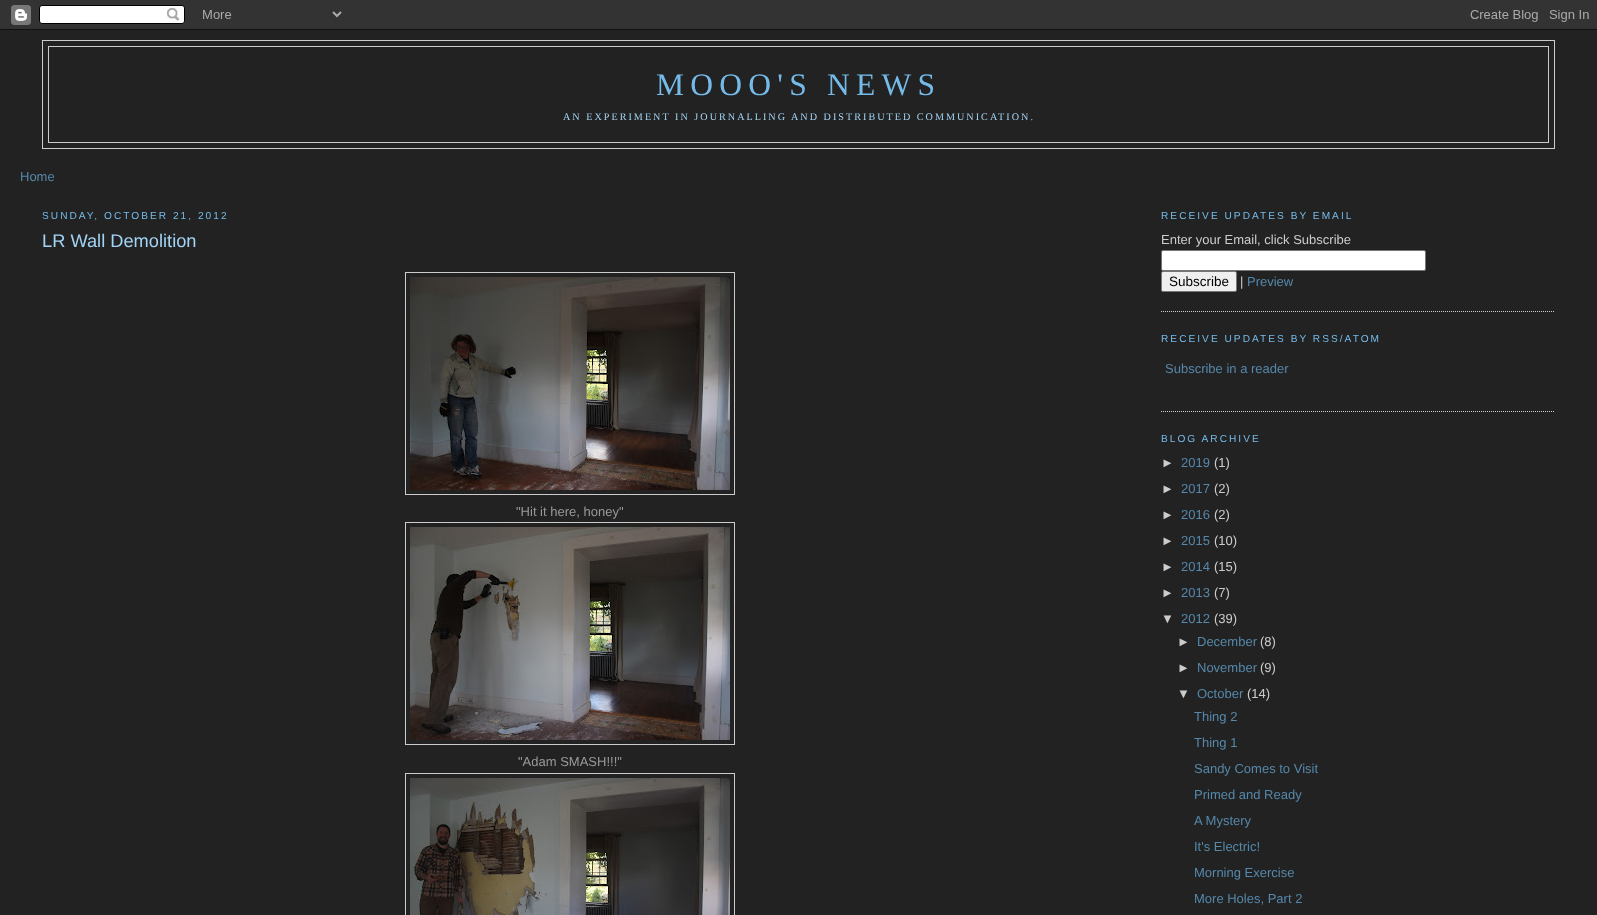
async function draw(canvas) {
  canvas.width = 1597;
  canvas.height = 915;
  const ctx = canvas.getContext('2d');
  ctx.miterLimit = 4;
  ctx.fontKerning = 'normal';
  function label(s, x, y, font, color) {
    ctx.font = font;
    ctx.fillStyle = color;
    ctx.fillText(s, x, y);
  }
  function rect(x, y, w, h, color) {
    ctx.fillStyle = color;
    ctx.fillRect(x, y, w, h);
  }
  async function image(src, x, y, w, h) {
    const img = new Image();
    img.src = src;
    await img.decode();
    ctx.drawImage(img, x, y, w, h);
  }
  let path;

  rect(0, 0, 1597, 915, '#222');
  await image('assets/img1.png', 0, 0, 1597, 30);
  ctx.strokeStyle = '#ccc';
  ctx.strokeRect(42.5, 40.5, 1512, 108);
  ctx.strokeRect(48.5, 46.5, 1500, 96);
  ctx.letterSpacing = '6.25px';
  label('MOOO\'S NEWS', 656, 95, '31.5px Liberation Serif', '#75bbea');
  ctx.letterSpacing = '2.03px';
  label('AN EXPERIMENT IN JOURNALLING AND DISTRIBUTED COMMUNICATION.', 563, 120, '10.15px Liberation Serif', '#a3d4f5');
  ctx.letterSpacing = '0px';
  label('Home', 20, 181, '13px Liberation Sans', '#58a');
  ctx.letterSpacing = '2.03px';
  label('SUNDAY, OCTOBER 21, 2012', 42, 219, '10.15px Liberation Sans', '#75bbea');
  ctx.letterSpacing = '0px';
  label('LR Wall Demolition', 42, 247, '18.25px Liberation Sans', '#a3d4f5');
  ctx.strokeRect(405.5, 272.5, 329, 222);
  await image('assets/img2.png', 410, 277, 320, 213);
  label('"Hit it here, honey"', 516, 516, '13px Liberation Sans', '#999');
  ctx.strokeRect(405.5, 522.5, 329, 222);
  await image('assets/img3.png', 410, 527, 320, 213);
  label('"Adam SMASH!!!"', 518, 766, '13px Liberation Sans', '#999');
  ctx.strokeRect(405.5, 773.5, 329, 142);
  await image('assets/img4.png', 410, 778, 320, 137);
  path = new Path2D('M1161 311.5H1555');
  ctx.setLineDash([1, 1]);
  ctx.stroke(path);
  ctx.letterSpacing = '2.03px';
  label('RECEIVE UPDATES BY EMAIL', 1161, 219, '10.15px Liberation Sans', '#75bbea');
  ctx.letterSpacing = '0px';
  label('Enter your Email, click Subscribe', 1161, 244, '13px Liberation Sans', '#ccc');
  ctx.fillStyle = '#fff';
  ctx.beginPath();
  ctx.roundRect(1161.5, 250.5, 264, 20, 1.5);
  ctx.fill();
  ctx.strokeStyle = '#767676';
  ctx.setLineDash([]);
  ctx.stroke();
  ctx.fillStyle = '#efefef';
  ctx.beginPath();
  ctx.roundRect(1161.5, 271.5, 75, 20, 1.5);
  ctx.fill();
  ctx.stroke();
  label('Subscribe', 1169, 286, '13.5px Liberation Sans', '#000');
  label('|', 1240, 286, '13px Liberation Sans', '#ccc');
  label('Preview', 1247, 286, '13px Liberation Sans', '#58a');
  path = new Path2D('M1161 411.5H1555');
  ctx.strokeStyle = '#ccc';
  ctx.setLineDash([1, 1]);
  ctx.stroke(path);
  ctx.letterSpacing = '2.03px';
  label('RECEIVE UPDATES BY RSS/ATOM', 1161, 342, '10.15px Liberation Sans', '#75bbea');
  ctx.letterSpacing = '0px';
  label('Subscribe in a reader', 1165, 373, '13px Liberation Sans', '#58a');
  ctx.letterSpacing = '2.03px';
  label('BLOG ARCHIVE', 1161, 442, '10.15px Liberation Sans', '#75bbea');
  ctx.letterSpacing = '0px';
  label('►', 1161, 467, '13px Liberation Sans', '#ccc');
  label('2019', 1181, 467, '13px Liberation Sans', '#58a');
  label('(1)', 1214, 467, '13px Liberation Sans', '#ccc');
  label('►', 1161, 493, '13px Liberation Sans', '#ccc');
  label('2017', 1181, 493, '13px Liberation Sans', '#58a');
  label('(2)', 1214, 493, '13px Liberation Sans', '#ccc');
  label('►', 1161, 519, '13px Liberation Sans', '#ccc');
  label('2016', 1181, 519, '13px Liberation Sans', '#58a');
  label('(2)', 1214, 519, '13px Liberation Sans', '#ccc');
  label('►', 1161, 545, '13px Liberation Sans', '#ccc');
  label('2015', 1181, 545, '13px Liberation Sans', '#58a');
  label('(10)', 1214, 545, '13px Liberation Sans', '#ccc');
  label('►', 1161, 571, '13px Liberation Sans', '#ccc');
  label('2014', 1181, 571, '13px Liberation Sans', '#58a');
  label('(15)', 1214, 571, '13px Liberation Sans', '#ccc');
  label('►', 1161, 597, '13px Liberation Sans', '#ccc');
  label('2013', 1181, 597, '13px Liberation Sans', '#58a');
  label('(7)', 1214, 597, '13px Liberation Sans', '#ccc');
  label('▼', 1161, 623, '13px Liberation Sans', '#ccc');
  label('2012', 1181, 623, '13px Liberation Sans', '#58a');
  label('(39)', 1214, 623, '13px Liberation Sans', '#ccc');
  label('►', 1177, 646, '13px Liberation Sans', '#ccc');
  label('December', 1197, 646, '13px Liberation Sans', '#58a');
  label('(8)', 1260, 646, '13px Liberation Sans', '#ccc');
  label('►', 1177, 672, '13px Liberation Sans', '#ccc');
  label('November', 1197, 672, '13px Liberation Sans', '#58a');
  label('(9)', 1260, 672, '13px Liberation Sans', '#ccc');
  label('▼', 1177, 698, '13px Liberation Sans', '#ccc');
  label('October', 1197, 698, '13px Liberation Sans', '#58a');
  label('(14)', 1247, 698, '13px Liberation Sans', '#ccc');
  label('Thing 2', 1194, 721, '13px Liberation Sans', '#58a');
  label('Thing 1', 1194, 747, '13px Liberation Sans', '#58a');
  label('Sandy Comes to Visit', 1194, 773, '13px Liberation Sans', '#58a');
  label('Primed and Ready', 1194, 799, '13px Liberation Sans', '#58a');
  label('A Mystery', 1194, 825, '13px Liberation Sans', '#58a');
  label('It\'s Electric!', 1194, 851, '13px Liberation Sans', '#58a');
  label('Morning Exercise', 1194, 877, '13px Liberation Sans', '#58a');
  label('More Holes, Part 2', 1194, 903, '13px Liberation Sans', '#58a');
}

draw(document.querySelector('canvas'));
